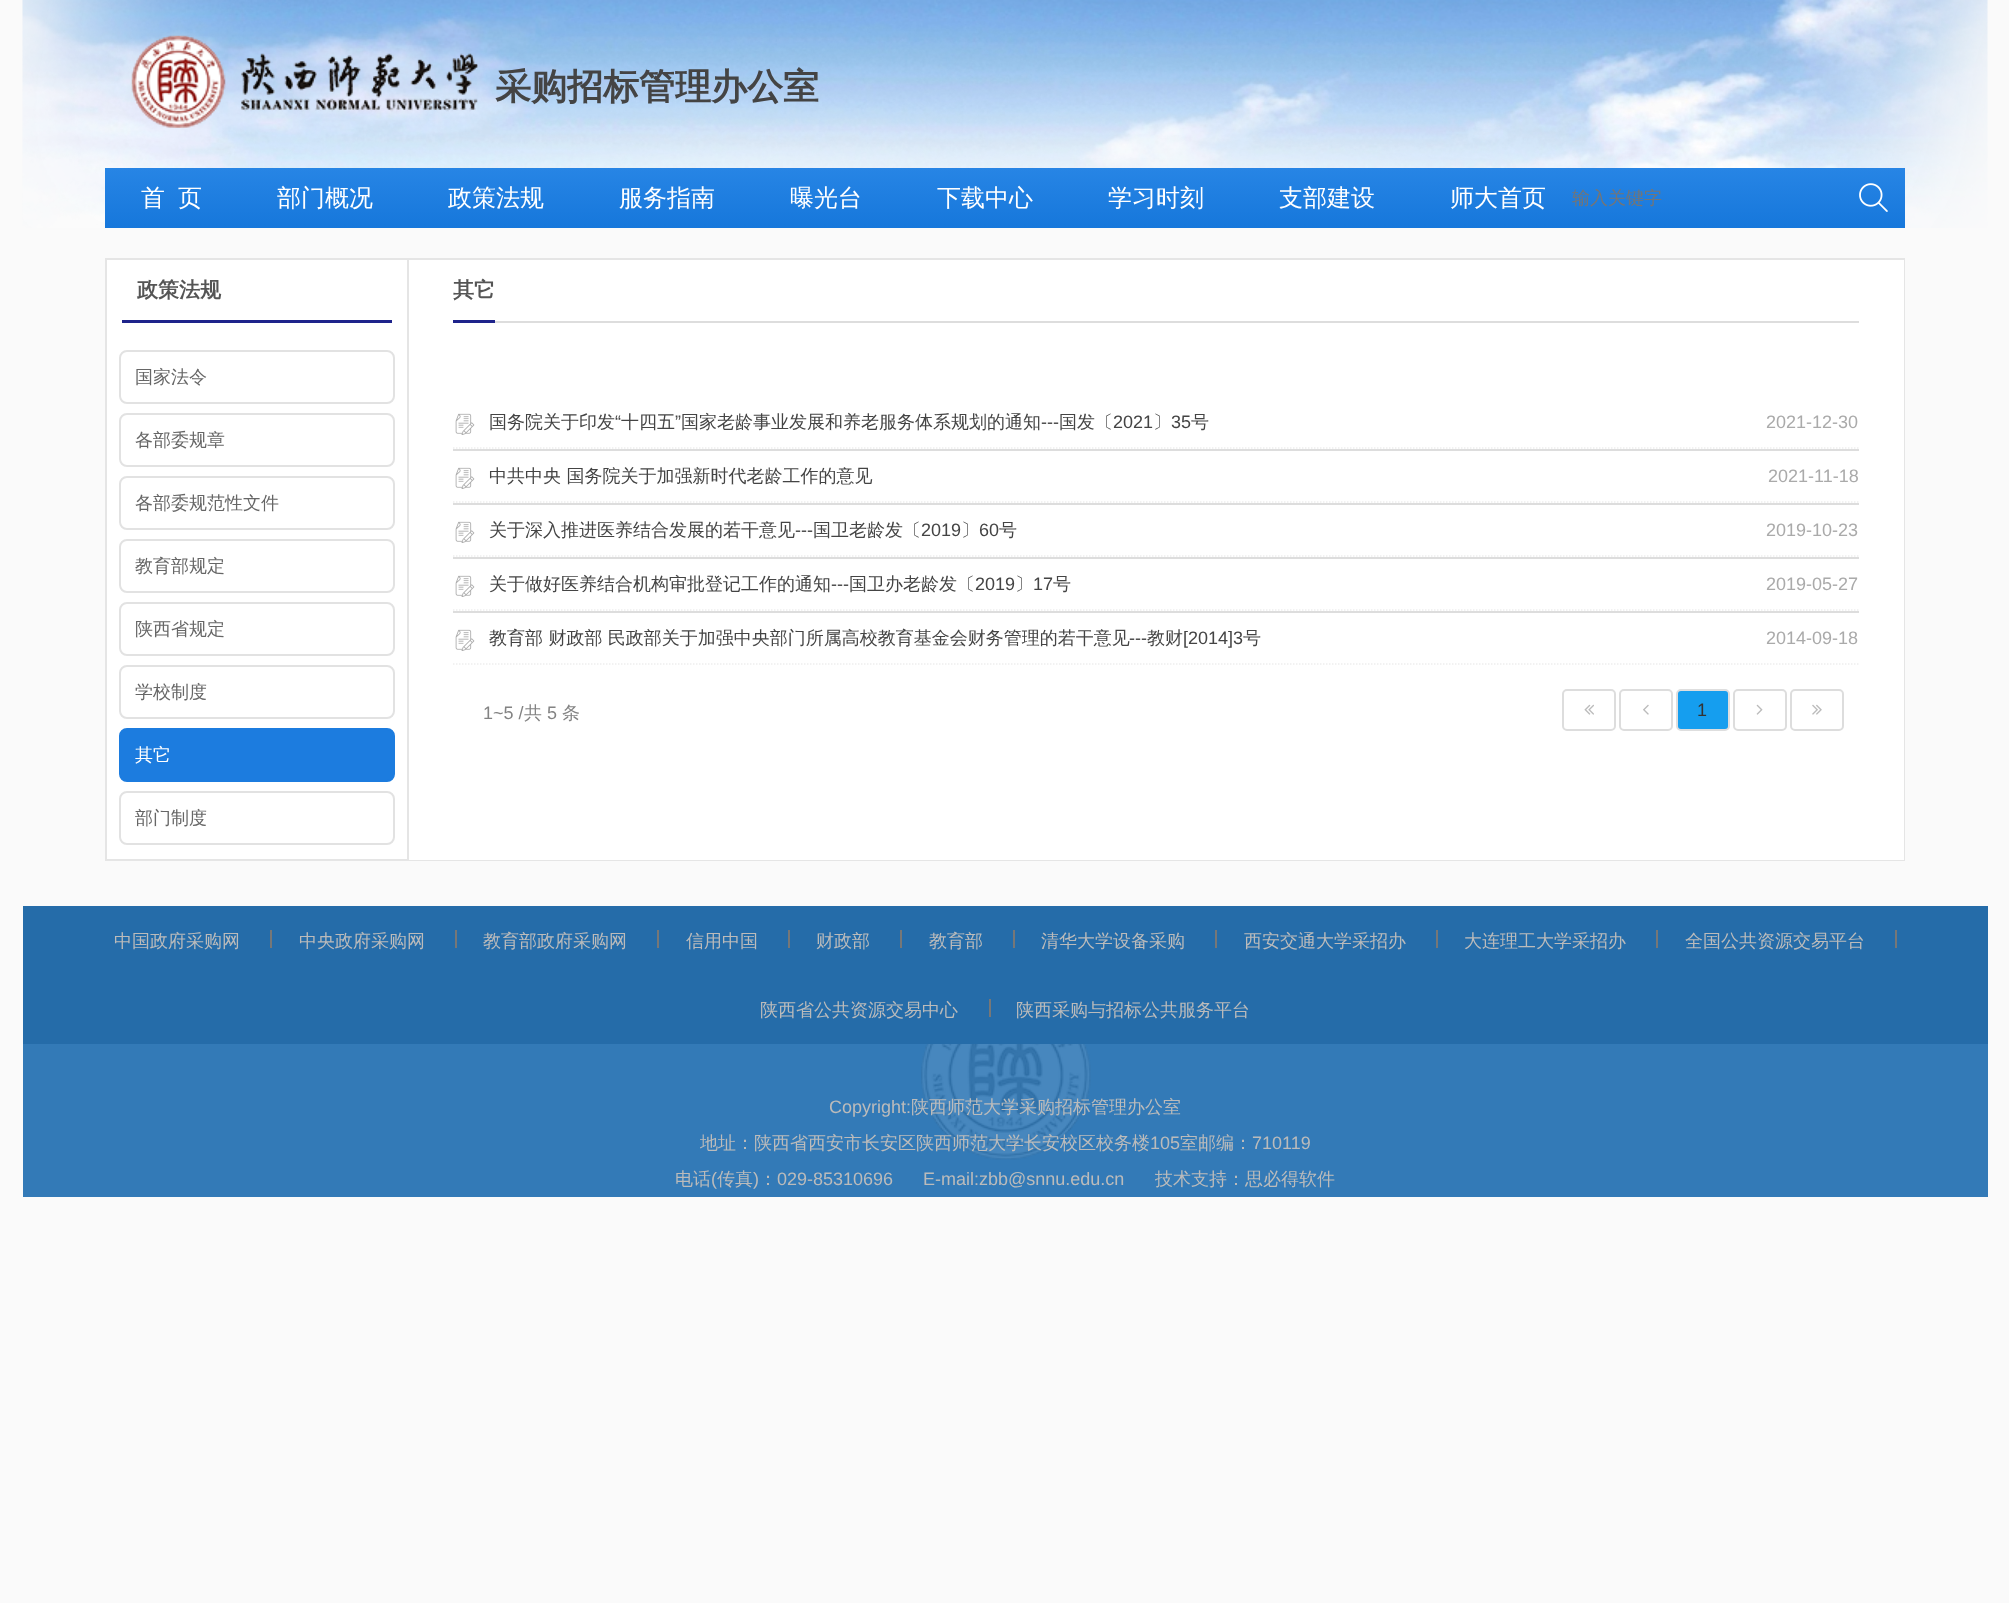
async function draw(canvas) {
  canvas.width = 2009;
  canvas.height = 1603;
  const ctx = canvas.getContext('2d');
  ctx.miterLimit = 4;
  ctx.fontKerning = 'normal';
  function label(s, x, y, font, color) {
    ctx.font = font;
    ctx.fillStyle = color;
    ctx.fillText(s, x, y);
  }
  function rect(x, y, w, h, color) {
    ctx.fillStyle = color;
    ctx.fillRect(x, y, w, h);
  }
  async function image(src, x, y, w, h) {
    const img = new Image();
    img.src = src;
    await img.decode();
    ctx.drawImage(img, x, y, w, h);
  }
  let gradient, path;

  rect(0, 0, 2009, 1603, '#fafafa');
  await image('assets/img1.png', 22, 0, 1966, 228);
  await image('assets/img2.png', 131, 35, 347, 93);
  await image('assets/img3.png', 131, 35, 347, 93);
  label('采购招标管理办公室', 495, 99, 'bold 36px WenQuanYi Zen Hei', '#444');
  gradient = ctx.createLinearGradient(1005, 168, 1005, 228);
  gradient.addColorStop(0, '#2785e5');
  gradient.addColorStop(1, '#1677db');
  ctx.fillStyle = gradient;
  ctx.fillRect(105, 168, 1800, 60);
  label('首', 141, 206, '500 24px WenQuanYi Zen Hei', '#fff');
  label('页', 178, 206, '500 24px WenQuanYi Zen Hei', '#fff');
  label('部门概况', 277, 206, '500 24px WenQuanYi Zen Hei', '#fff');
  label('政策法规', 448, 206, '500 24px WenQuanYi Zen Hei', '#fff');
  label('服务指南', 619, 206, '500 24px WenQuanYi Zen Hei', '#fff');
  label('曝光台', 790, 206, '500 24px WenQuanYi Zen Hei', '#fff');
  label('下载中心', 937, 206, '500 24px WenQuanYi Zen Hei', '#fff');
  label('学习时刻', 1108, 206, '500 24px WenQuanYi Zen Hei', '#fff');
  label('支部建设', 1279, 206, '500 24px WenQuanYi Zen Hei', '#fff');
  label('师大首页', 1450, 206, '500 24px WenQuanYi Zen Hei', '#fff');
  label('输入关键字', 1572, 204, '500 18px WenQuanYi Zen Hei', '#757575');
  await image('assets/img4.png', 1859, 183, 29, 29);
  rect(107, 260, 300, 599, '#fff');
  ctx.strokeStyle = '#e5e5e5';
  ctx.lineWidth = 2;
  ctx.strokeRect(106, 259, 1798, 601);
  rect(122, 320, 270, 3, '#1e238b');
  label('政策法规', 137, 297, 'bold 21px WenQuanYi Zen Hei', '#555');
  ctx.beginPath();
  ctx.roundRect(120, 351, 274, 52, 7);
  ctx.strokeStyle = '#e2e2e2';
  ctx.stroke();
  label('国家法令', 135, 383, '500 18px WenQuanYi Zen Hei', '#666');
  ctx.beginPath();
  ctx.roundRect(120, 414, 274, 52, 7);
  ctx.stroke();
  label('各部委规章', 135, 446, '500 18px WenQuanYi Zen Hei', '#666');
  ctx.beginPath();
  ctx.roundRect(120, 477, 274, 52, 7);
  ctx.stroke();
  label('各部委规范性文件', 135, 509, '500 18px WenQuanYi Zen Hei', '#666');
  ctx.beginPath();
  ctx.roundRect(120, 540, 274, 52, 7);
  ctx.stroke();
  label('教育部规定', 135, 572, '500 18px WenQuanYi Zen Hei', '#666');
  ctx.beginPath();
  ctx.roundRect(120, 603, 274, 52, 7);
  ctx.stroke();
  label('陕西省规定', 135, 635, '500 18px WenQuanYi Zen Hei', '#666');
  ctx.beginPath();
  ctx.roundRect(120, 666, 274, 52, 7);
  ctx.stroke();
  label('学校制度', 135, 698, '500 18px WenQuanYi Zen Hei', '#666');
  ctx.fillStyle = '#1c7cdf';
  ctx.beginPath();
  ctx.roundRect(120, 729, 274, 52, 7);
  ctx.fill();
  ctx.strokeStyle = '#1c7cdf';
  ctx.stroke();
  label('其它', 135, 761, '500 18px WenQuanYi Zen Hei', '#fff');
  ctx.beginPath();
  ctx.roundRect(120, 792, 274, 52, 7);
  ctx.strokeStyle = '#e2e2e2';
  ctx.stroke();
  label('部门制度', 135, 824, '500 18px WenQuanYi Zen Hei', '#666');
  rect(409, 260, 1495, 600, '#fff');
  rect(407, 260, 2, 600, '#e5e5e5');
  rect(495, 321, 1364, 2, '#ddd');
  rect(453, 320, 42, 3, '#1e238b');
  label('其它', 453, 297, 'bold 21px WenQuanYi Zen Hei', '#555');
  path = new Path2D('M453 448H1858.5');
  ctx.strokeStyle = '#eee';
  ctx.lineWidth = 1.5;
  ctx.setLineDash([1.5, 1.5]);
  ctx.stroke(path);
  await image('assets/img5.png', 455, 413, 20, 22);
  label('国务院关于印发', 489, 428, '500 18px WenQuanYi Zen Hei', '#444');
  label('“', 615, 428, '18px Liberation Sans', '#444');
  label('十四五', 621, 428, '500 18px WenQuanYi Zen Hei', '#444');
  label('”', 675, 428, '18px Liberation Sans', '#444');
  label('国家老龄事业发展和养老服务体系规划的通知', 681, 428, '500 18px WenQuanYi Zen Hei', '#444');
  label('---', 1041, 428, '18px Liberation Sans', '#444');
  label('国发〔', 1059, 428, '500 18px WenQuanYi Zen Hei', '#444');
  label('2021', 1113, 428, '18px Liberation Sans', '#444');
  label('〕', 1153, 428, '500 18px WenQuanYi Zen Hei', '#444');
  label('35', 1171, 428, '18px Liberation Sans', '#444');
  label('号', 1191, 428, '500 18px WenQuanYi Zen Hei', '#444');
  label('2021-12-30', 1766, 428, '18px Liberation Sans', '#aaa');
  rect(453, 449, 1406, 2, '#ddd');
  path = new Path2D('M453 502H1858.5');
  ctx.stroke(path);
  await image('assets/img6.png', 455, 467, 20, 22);
  label('中共中央 国务院关于加强新时代老龄工作的意见', 489, 482, '500 18px WenQuanYi Zen Hei', '#444');
  label('2021-11-18', 1768, 482, '18px Liberation Sans', '#aaa');
  rect(453, 503, 1406, 2, '#ddd');
  path = new Path2D('M453 556H1858.5');
  ctx.stroke(path);
  await image('assets/img5.png', 455, 521, 20, 22);
  label('关于深入推进医养结合发展的若干意见', 489, 536, '500 18px WenQuanYi Zen Hei', '#444');
  label('---', 795, 536, '18px Liberation Sans', '#444');
  label('国卫老龄发〔', 813, 536, '500 18px WenQuanYi Zen Hei', '#444');
  label('2019', 921, 536, '18px Liberation Sans', '#444');
  label('〕', 961, 536, '500 18px WenQuanYi Zen Hei', '#444');
  label('60', 979, 536, '18px Liberation Sans', '#444');
  label('号', 999, 536, '500 18px WenQuanYi Zen Hei', '#444');
  label('2019-10-23', 1766, 536, '18px Liberation Sans', '#aaa');
  rect(453, 557, 1406, 2, '#ddd');
  path = new Path2D('M453 610H1858.5');
  ctx.stroke(path);
  await image('assets/img6.png', 455, 575, 20, 22);
  label('关于做好医养结合机构审批登记工作的通知', 489, 590, '500 18px WenQuanYi Zen Hei', '#444');
  label('---', 831, 590, '18px Liberation Sans', '#444');
  label('国卫办老龄发〔', 849, 590, '500 18px WenQuanYi Zen Hei', '#444');
  label('2019', 975, 590, '18px Liberation Sans', '#444');
  label('〕', 1015, 590, '500 18px WenQuanYi Zen Hei', '#444');
  label('17', 1033, 590, '18px Liberation Sans', '#444');
  label('号', 1053, 590, '500 18px WenQuanYi Zen Hei', '#444');
  label('2019-05-27', 1766, 590, '18px Liberation Sans', '#aaa');
  rect(453, 611, 1406, 2, '#ddd');
  path = new Path2D('M453 664H1858.5');
  ctx.stroke(path);
  await image('assets/img5.png', 455, 629, 20, 22);
  label('教育部 财政部 民政部关于加强中央部门所属高校教育基金会财务管理的若干意见', 489, 644, '500 18px WenQuanYi Zen Hei', '#444');
  label('---', 1129, 644, '18px Liberation Sans', '#444');
  label('教财', 1147, 644, '500 18px WenQuanYi Zen Hei', '#444');
  label('[2014]3', 1183, 644, '18px Liberation Sans', '#444');
  label('号', 1243, 644, '500 18px WenQuanYi Zen Hei', '#444');
  label('2014-09-18', 1766, 644, '18px Liberation Sans', '#aaa');
  label('1~5 /', 483, 719, '18px Liberation Sans', '#838383');
  label('共', 524, 719, '500 18px WenQuanYi Zen Hei', '#838383');
  label('5', 547, 719, '18px Liberation Sans', '#838383');
  label('条', 562, 719, '500 18px WenQuanYi Zen Hei', '#838383');
  ctx.beginPath();
  ctx.roundRect(1563, 690, 52, 40, 4);
  ctx.strokeStyle = '#ddd';
  ctx.lineWidth = 2;
  ctx.setLineDash([]);
  ctx.stroke();
  await image('assets/img7.png', 1584, 704, 10, 11);
  ctx.beginPath();
  ctx.roundRect(1620, 690, 52, 40, 4);
  ctx.stroke();
  await image('assets/img8.png', 1643, 704, 6, 11);
  ctx.fillStyle = '#159eef';
  ctx.beginPath();
  ctx.roundRect(1677, 690, 52, 40, 4);
  ctx.fill();
  ctx.strokeStyle = '#dedede';
  ctx.stroke();
  label('1', 1697, 716, '18px Liberation Sans', '#333');
  ctx.beginPath();
  ctx.roundRect(1734, 690, 52, 40, 4);
  ctx.strokeStyle = '#ddd';
  ctx.stroke();
  await image('assets/img9.png', 1756, 704, 7, 11);
  ctx.beginPath();
  ctx.roundRect(1791, 690, 52, 40, 4);
  ctx.stroke();
  await image('assets/img10.png', 1812, 704, 10, 11);
  rect(23, 1044, 1965, 153, '#337ab7');
  await image('assets/img11.png', 921, 1044, 170, 116);
  rect(23, 906, 1965, 138, '#256ca9');
  label('中国政府采购网', 114, 947, '500 18px WenQuanYi Zen Hei', '#bbb');
  rect(270, 930, 2, 18, '#777');
  label('中央政府采购网', 299, 947, '500 18px WenQuanYi Zen Hei', '#bbb');
  rect(455, 930, 2, 18, '#777');
  label('教育部政府采购网', 483, 947, '500 18px WenQuanYi Zen Hei', '#bbb');
  rect(657, 930, 2, 18, '#777');
  label('信用中国', 686, 947, '500 18px WenQuanYi Zen Hei', '#bbb');
  rect(788, 930, 2, 18, '#777');
  label('财政部', 816, 947, '500 18px WenQuanYi Zen Hei', '#bbb');
  rect(900, 930, 2, 18, '#777');
  label('教育部', 929, 947, '500 18px WenQuanYi Zen Hei', '#bbb');
  rect(1013, 930, 2, 18, '#777');
  label('清华大学设备采购', 1041, 947, '500 18px WenQuanYi Zen Hei', '#bbb');
  rect(1215, 930, 2, 18, '#777');
  label('西安交通大学采招办', 1244, 947, '500 18px WenQuanYi Zen Hei', '#bbb');
  rect(1436, 930, 2, 18, '#777');
  label('大连理工大学采招办', 1464, 947, '500 18px WenQuanYi Zen Hei', '#bbb');
  rect(1656, 930, 2, 18, '#777');
  label('全国公共资源交易平台', 1685, 947, '500 18px WenQuanYi Zen Hei', '#bbb');
  rect(1895, 930, 2, 18, '#777');
  label('陕西省公共资源交易中心', 760, 1016, '500 18px WenQuanYi Zen Hei', '#bbb');
  rect(989, 999, 2, 18, '#777');
  label('陕西采购与招标公共服务平台', 1016, 1016, '500 18px WenQuanYi Zen Hei', '#bbb');
  label('Copyright:', 829, 1113, '18px Liberation Sans', '#bbb');
  label('陕西师范大学采购招标管理办公室', 911, 1113, '500 18px WenQuanYi Zen Hei', '#bbb');
  label('地址：陕西省西安市长安区陕西师范大学长安校区校务楼', 700, 1149, '500 18px WenQuanYi Zen Hei', '#bbb');
  label('105', 1150, 1149, '18px Liberation Sans', '#bbb');
  label('室邮编：', 1180, 1149, '500 18px WenQuanYi Zen Hei', '#bbb');
  label('710119', 1252, 1149, '18px Liberation Sans', '#bbb');
  label('电话', 675, 1185, '500 18px WenQuanYi Zen Hei', '#bbb');
  label('(', 711, 1185, '18px Liberation Sans', '#bbb');
  label('传真', 717, 1185, '500 18px WenQuanYi Zen Hei', '#bbb');
  label(')', 753, 1185, '18px Liberation Sans', '#bbb');
  label('：', 759, 1185, '500 18px WenQuanYi Zen Hei', '#bbb');
  label('029-85310696', 777, 1185, '18px Liberation Sans', '#bbb');
  label('E-mail:zbb@snnu.edu.cn', 923, 1185, '18px Liberation Sans', '#bbb');
  label('技术支持：思必得软件', 1155, 1185, '500 18px WenQuanYi Zen Hei', '#bbb');
}

draw(document.querySelector('canvas'));
